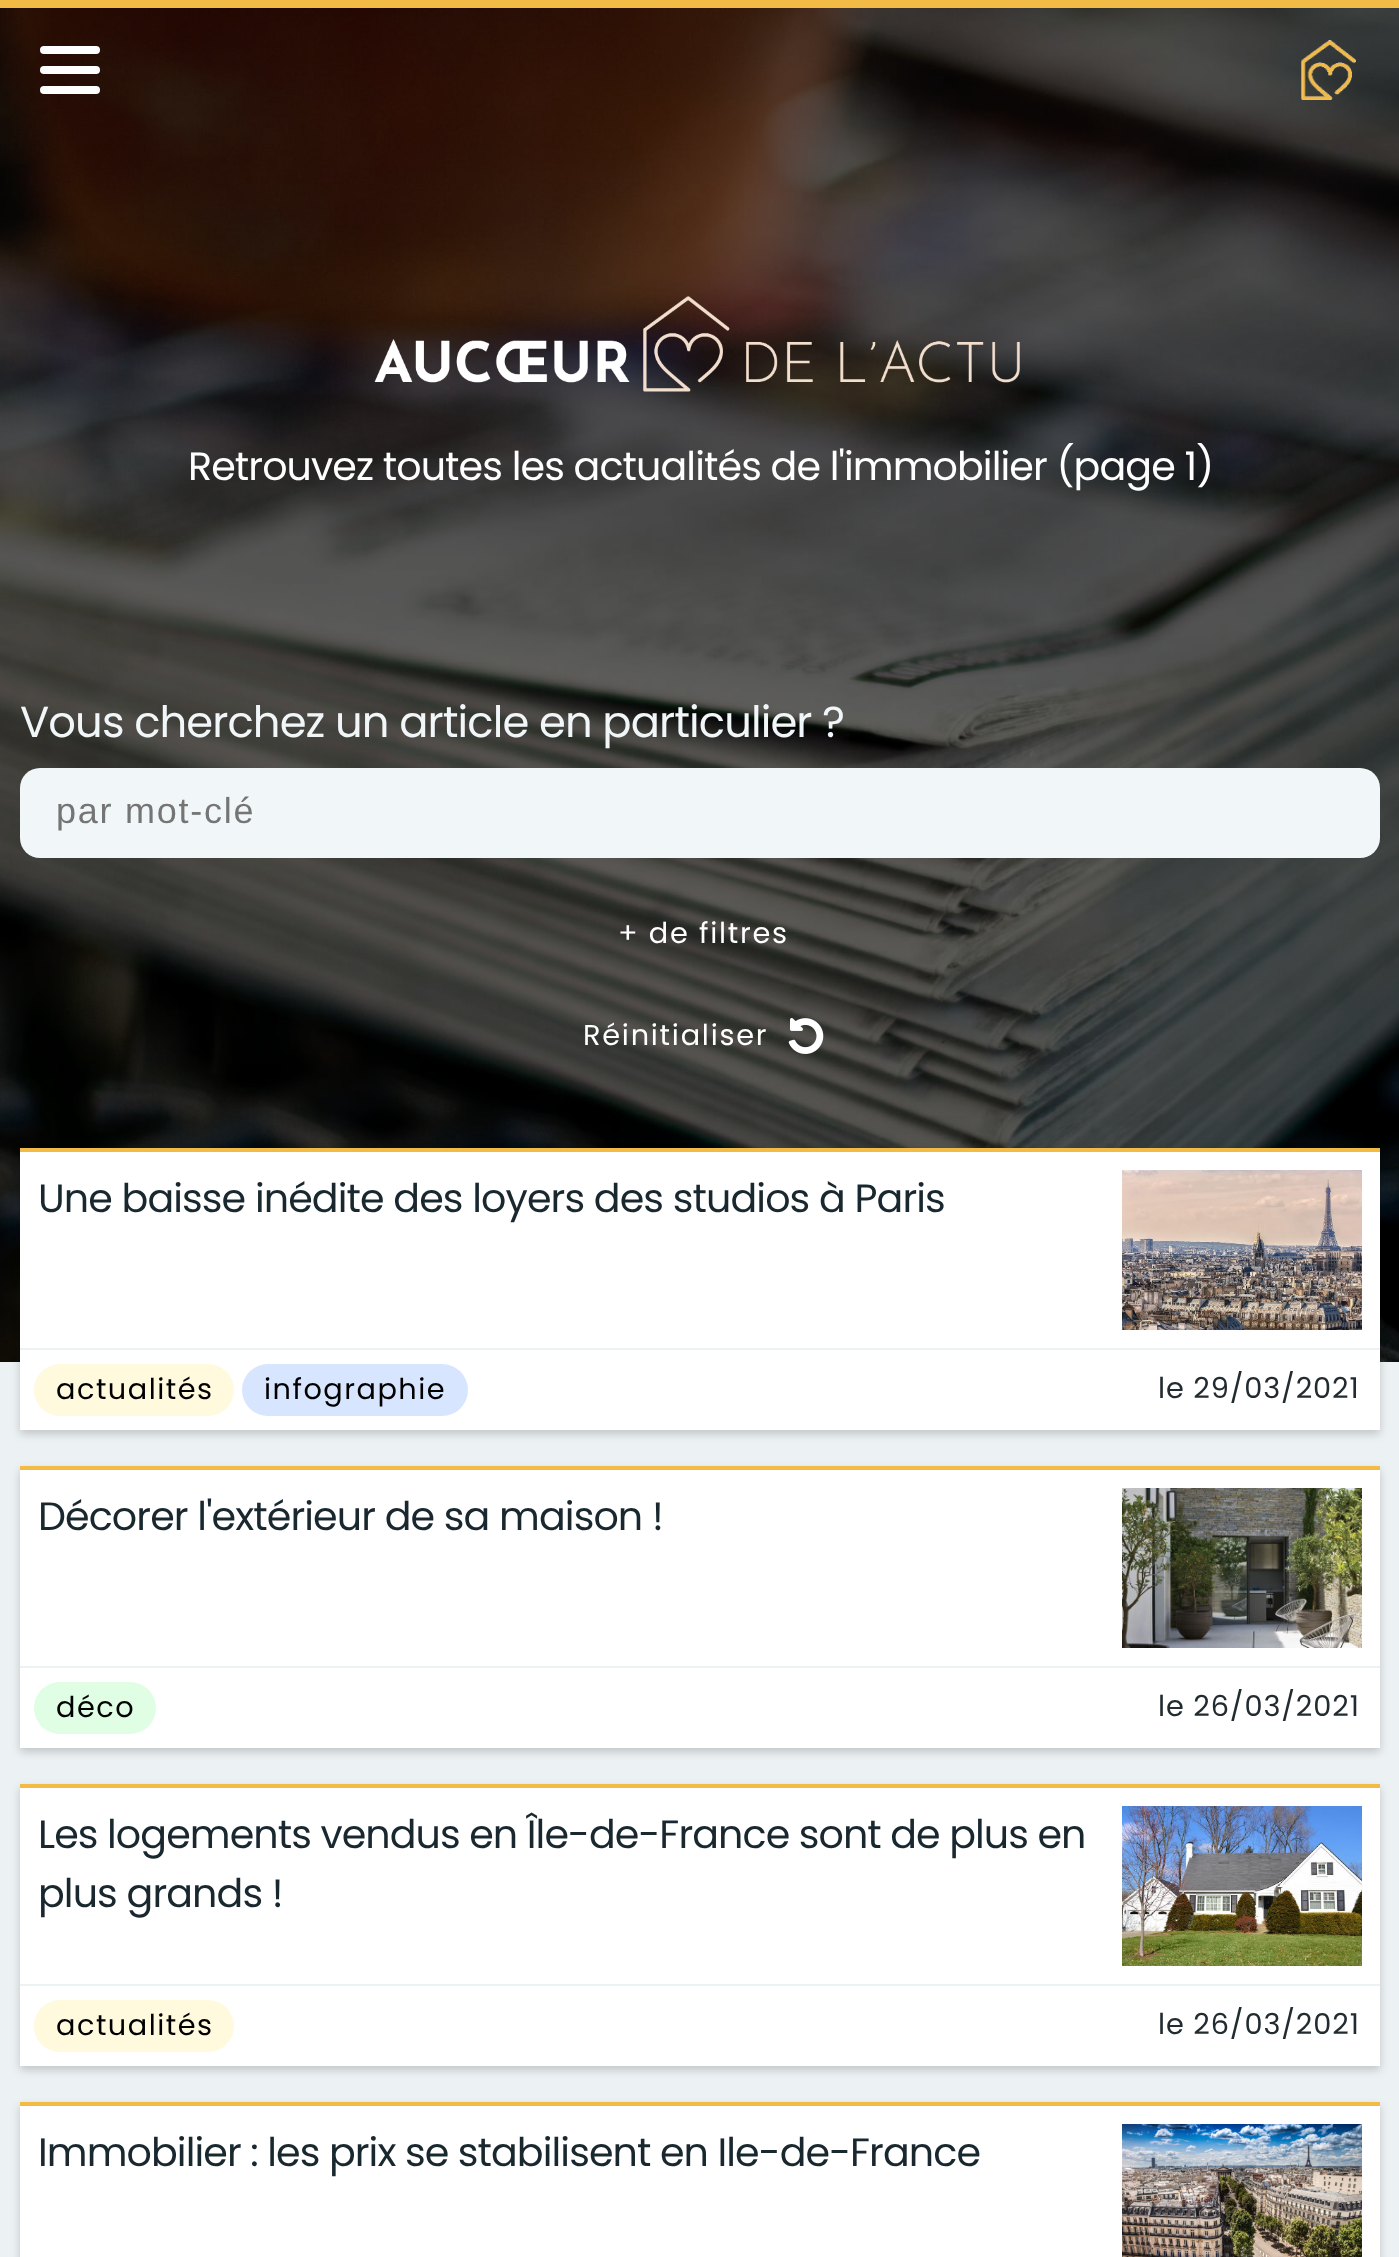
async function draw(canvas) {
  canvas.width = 1399;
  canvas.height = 2257;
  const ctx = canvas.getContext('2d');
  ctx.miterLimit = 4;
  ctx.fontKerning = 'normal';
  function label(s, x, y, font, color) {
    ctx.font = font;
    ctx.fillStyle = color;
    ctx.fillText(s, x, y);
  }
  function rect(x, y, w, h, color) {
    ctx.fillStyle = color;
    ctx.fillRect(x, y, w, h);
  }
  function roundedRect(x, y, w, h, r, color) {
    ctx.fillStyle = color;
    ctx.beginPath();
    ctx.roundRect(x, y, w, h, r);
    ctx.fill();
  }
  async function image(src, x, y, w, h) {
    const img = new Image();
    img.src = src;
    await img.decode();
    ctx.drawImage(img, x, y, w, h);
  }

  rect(0, 0, 1399, 2257, '#ecf1f4');
  await image('assets/img2.png', 0, 8, 1399, 1354);
  roundedRect(40, 46, 60, 8, 4, '#fff');
  roundedRect(40, 66, 60, 8, 4, '#fff');
  roundedRect(40, 86, 60, 8, 4, '#fff');
  await image('assets/img1.png', 1301, 40, 55, 60);
  rect(0, 0, 1399, 8, '#f2bb45');
  await image('assets/img3.png', 374, 296, 646, 96);
  ctx.letterSpacing = '-0.9px';
  label('Retrouvez toutes les actualités de l\'immobilier (page 1)', 188, 480, '39.6px Poppins', '#fff');
  label('Vous cherchez un article en particulier ?', 20, 737, '43.25px Poppins', '#f1f6f8');
  roundedRect(20, 768, 1360, 90, 20, '#f1f6f8');
  ctx.letterSpacing = '1.75px';
  label('par mot-clé', 56, 823, '36px Liberation Sans', '#757575');
  label('+ de filtres', 618, 943, '28.75px Poppins', '#fff');
  label('Réinitialiser', 583, 1045, '28.75px Poppins', '#fff');
  await image('assets/img4.png', 788, 1018, 36, 36);
  ctx.fillStyle = '#0000002e';
  ctx.filter = 'blur(4px)';
  ctx.beginPath();
  ctx.rect(20, 1152, 1360, 282);
  ctx.fill();
  ctx.filter = 'none';
  rect(20, 1152, 1360, 278, '#fff');
  rect(20, 1148, 1360, 4, '#f2bb45');
  ctx.letterSpacing = '-0.9px';
  label('Une baisse inédite des loyers des studios à Paris', 38, 1212, '39.6px Poppins', '#19272f');
  await image('assets/img5.png', 1122, 1170, 240, 160);
  rect(20, 1348, 1360, 2, '#ecf1f4');
  roundedRect(34, 1364, 200, 52, 26, '#fffadd');
  ctx.letterSpacing = '1.5px';
  label('actualités', 56, 1399, '28.75px Poppins', '#000');
  roundedRect(242, 1364, 226, 52, 26, '#d7e5ff');
  label('infographie', 264, 1399, '28.75px Poppins', '#000');
  ctx.letterSpacing = '0.9px';
  label('le 29/03/2021', 1158, 1398, '28.75px Poppins', '#222b2f');
  ctx.fillStyle = '#0000002e';
  ctx.filter = 'blur(4px)';
  ctx.beginPath();
  ctx.rect(20, 1470, 1360, 282);
  ctx.fill();
  ctx.filter = 'none';
  rect(20, 1470, 1360, 278, '#fff');
  rect(20, 1466, 1360, 4, '#f2bb45');
  ctx.letterSpacing = '-0.9px';
  label('Décorer l\'extérieur de sa maison !', 38, 1530, '39.6px Poppins', '#19272f');
  await image('assets/img6.png', 1122, 1488, 240, 160);
  rect(20, 1666, 1360, 2, '#ecf1f4');
  roundedRect(34, 1682, 122, 52, 26, '#dffee3');
  ctx.letterSpacing = '1.5px';
  label('déco', 56, 1717, '28.75px Poppins', '#000');
  ctx.letterSpacing = '0.9px';
  label('le 26/03/2021', 1158, 1716, '28.75px Poppins', '#222b2f');
  ctx.fillStyle = '#0000002e';
  ctx.filter = 'blur(4px)';
  ctx.beginPath();
  ctx.rect(20, 1788, 1360, 282);
  ctx.fill();
  ctx.filter = 'none';
  rect(20, 1788, 1360, 278, '#fff');
  rect(20, 1784, 1360, 4, '#f2bb45');
  ctx.letterSpacing = '-0.9px';
  ctx.wordSpacing = '-0.25px';
  label('Les logements vendus en Île-de-France sont de plus en', 38, 1848, '39.6px Poppins', '#19272f');
  ctx.wordSpacing = '0px';
  label('plus grands !', 38, 1907, '39.6px Poppins', '#19272f');
  await image('assets/img7.png', 1122, 1806, 240, 160);
  rect(20, 1984, 1360, 2, '#ecf1f4');
  roundedRect(34, 2000, 200, 52, 26, '#fffadd');
  ctx.letterSpacing = '1.5px';
  label('actualités', 56, 2035, '28.75px Poppins', '#000');
  ctx.letterSpacing = '0.9px';
  label('le 26/03/2021', 1158, 2034, '28.75px Poppins', '#222b2f');
  ctx.fillStyle = '#0000002e';
  ctx.filter = 'blur(4px)';
  ctx.beginPath();
  ctx.rect(20, 2106, 1360, 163);
  ctx.fill();
  ctx.filter = 'none';
  rect(20, 2106, 1360, 151, '#fff');
  rect(20, 2102, 1360, 4, '#f2bb45');
  ctx.letterSpacing = '-0.9px';
  ctx.wordSpacing = '-0.25px';
  label('Immobilier : les prix se stabilisent en Ile-de-France', 38, 2166, '39.6px Poppins', '#19272f');
  await image('assets/img8.png', 1122, 2124, 240, 133);
}

draw(document.querySelector('canvas'));
